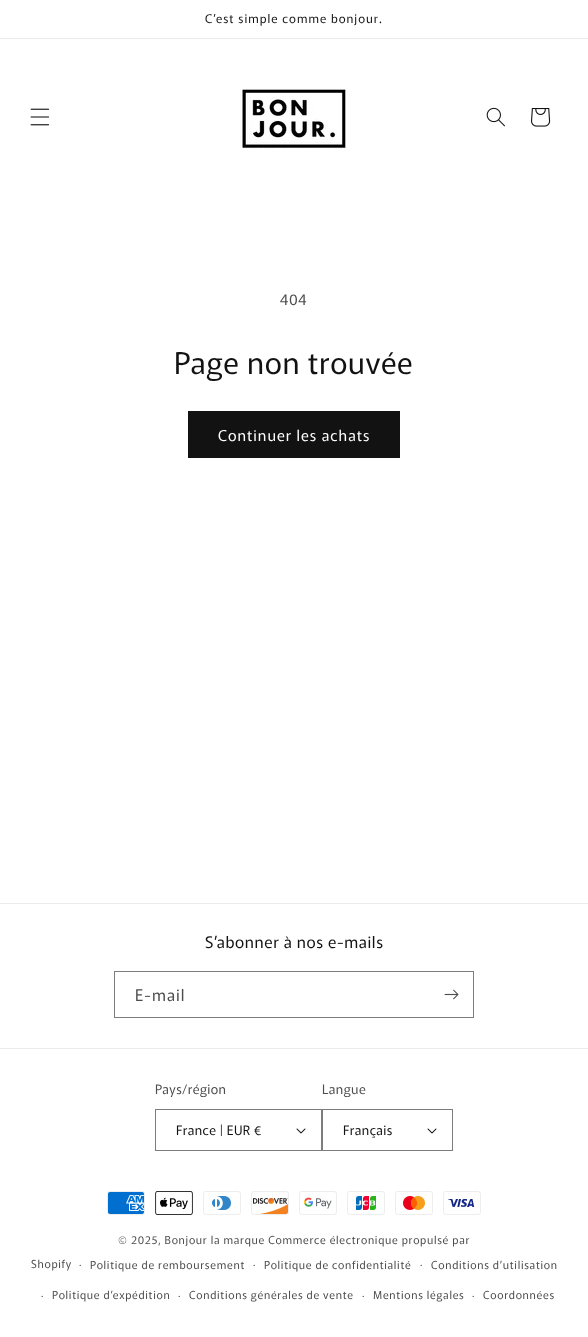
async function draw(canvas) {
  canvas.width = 588;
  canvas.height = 1337;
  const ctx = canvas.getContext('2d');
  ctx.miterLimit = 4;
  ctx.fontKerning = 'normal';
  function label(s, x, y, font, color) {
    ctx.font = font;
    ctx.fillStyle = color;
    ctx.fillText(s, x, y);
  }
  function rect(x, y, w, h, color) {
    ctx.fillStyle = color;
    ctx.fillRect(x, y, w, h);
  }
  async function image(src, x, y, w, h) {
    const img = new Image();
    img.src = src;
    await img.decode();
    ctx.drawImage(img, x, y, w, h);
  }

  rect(0, 0, 588, 1337, '#fff');
  rect(0, 38, 588, 1, '#ececec');
  ctx.letterSpacing = '1px';
  label('C’est simple comme bonjour.', 205, 23, '12px Murecho', '#121212');
  await image('assets/img1.png', 30, 108, 20, 18);
  await image('assets/img2.png', 240, 89, 106, 60);
  await image('assets/img3.png', 486, 107, 19, 20);
  await image('assets/img4.png', 531, 108, 20, 19);
  ctx.letterSpacing = '0.6px';
  label('404', 280, 305, '15px Murecho', '#4d4d4d');
  label('Page non trouvée', 174, 374, '30px Murecho', '#121212');
  rect(188, 411, 212, 47, '#121212');
  ctx.letterSpacing = '1px';
  label('Continuer les achats', 218, 441, '15px Murecho', '#fff');
  rect(0, 903, 588, 1, '#ececec');
  ctx.letterSpacing = '0.6px';
  label('S’abonner à nos e-mails', 205, 948, '16px Murecho', '#121212');
  ctx.strokeStyle = '#7d7d7d';
  ctx.strokeRect(114.5, 971.5, 359, 46);
  ctx.letterSpacing = '1px';
  label('E-mail', 135, 1001, '16px Murecho', '#4d4d4d');
  await image('assets/img5.png', 444, 989, 15, 11);
  rect(0, 1048, 588, 1, '#ececec');
  ctx.letterSpacing = '0.4px';
  label('Pays/région', 155, 1094, '13px Murecho', '#4d4d4d');
  await image('assets/img6.png', 296, 1128, 10, 6);
  ctx.strokeRect(155.5, 1109.5, 166, 41);
  label('France | EUR €', 176, 1135, '13px Murecho', '#121212');
  label('Langue', 322, 1094, '13px Murecho', '#4d4d4d');
  await image('assets/img6.png', 427, 1128, 10, 6);
  ctx.strokeRect(322.5, 1109.5, 130, 41);
  label('Français', 343, 1135, '13px Murecho', '#121212');
  await image('assets/img7.png', 107, 1191, 38, 24);
  await image('assets/img8.png', 155, 1191, 38, 24);
  await image('assets/img9.png', 203, 1191, 38, 24);
  await image('assets/img10.png', 251, 1191, 38, 24);
  await image('assets/img11.png', 299, 1191, 38, 24);
  await image('assets/img12.png', 347, 1191, 38, 24);
  await image('assets/img13.png', 395, 1191, 38, 24);
  await image('assets/img14.png', 443, 1191, 38, 24);
  ctx.letterSpacing = '0.7px';
  label('© 2025, Bonjour la marque Commerce électronique propulsé par', 118, 1244, '11px Murecho', '#4d4d4d');
  label('Shopify', 31, 1268, '11px Murecho', '#4d4d4d');
  label('·', 79, 1268, '10px Murecho', '#4d4d4d');
  label('Politique de remboursement', 90, 1269, '11px Murecho', '#4d4d4d');
  label('·', 253, 1268, '10px Murecho', '#4d4d4d');
  label('Politique de confidentialité', 264, 1269, '11px Murecho', '#4d4d4d');
  label('·', 420, 1268, '10px Murecho', '#4d4d4d');
  label('Conditions d’utilisation', 431, 1269, '11px Murecho', '#4d4d4d');
  label('·', 41, 1299, '10px Murecho', '#4d4d4d');
  label('Politique d’expédition', 52, 1299, '11px Murecho', '#4d4d4d');
  label('·', 178, 1299, '10px Murecho', '#4d4d4d');
  label('Conditions générales de vente', 189, 1299, '11px Murecho', '#4d4d4d');
  label('·', 362, 1299, '10px Murecho', '#4d4d4d');
  label('Mentions légales', 373, 1299, '11px Murecho', '#4d4d4d');
  label('·', 472, 1299, '10px Murecho', '#4d4d4d');
  label('Coordonnées', 483, 1299, '11px Murecho', '#4d4d4d');
}

draw(document.querySelector('canvas'));
